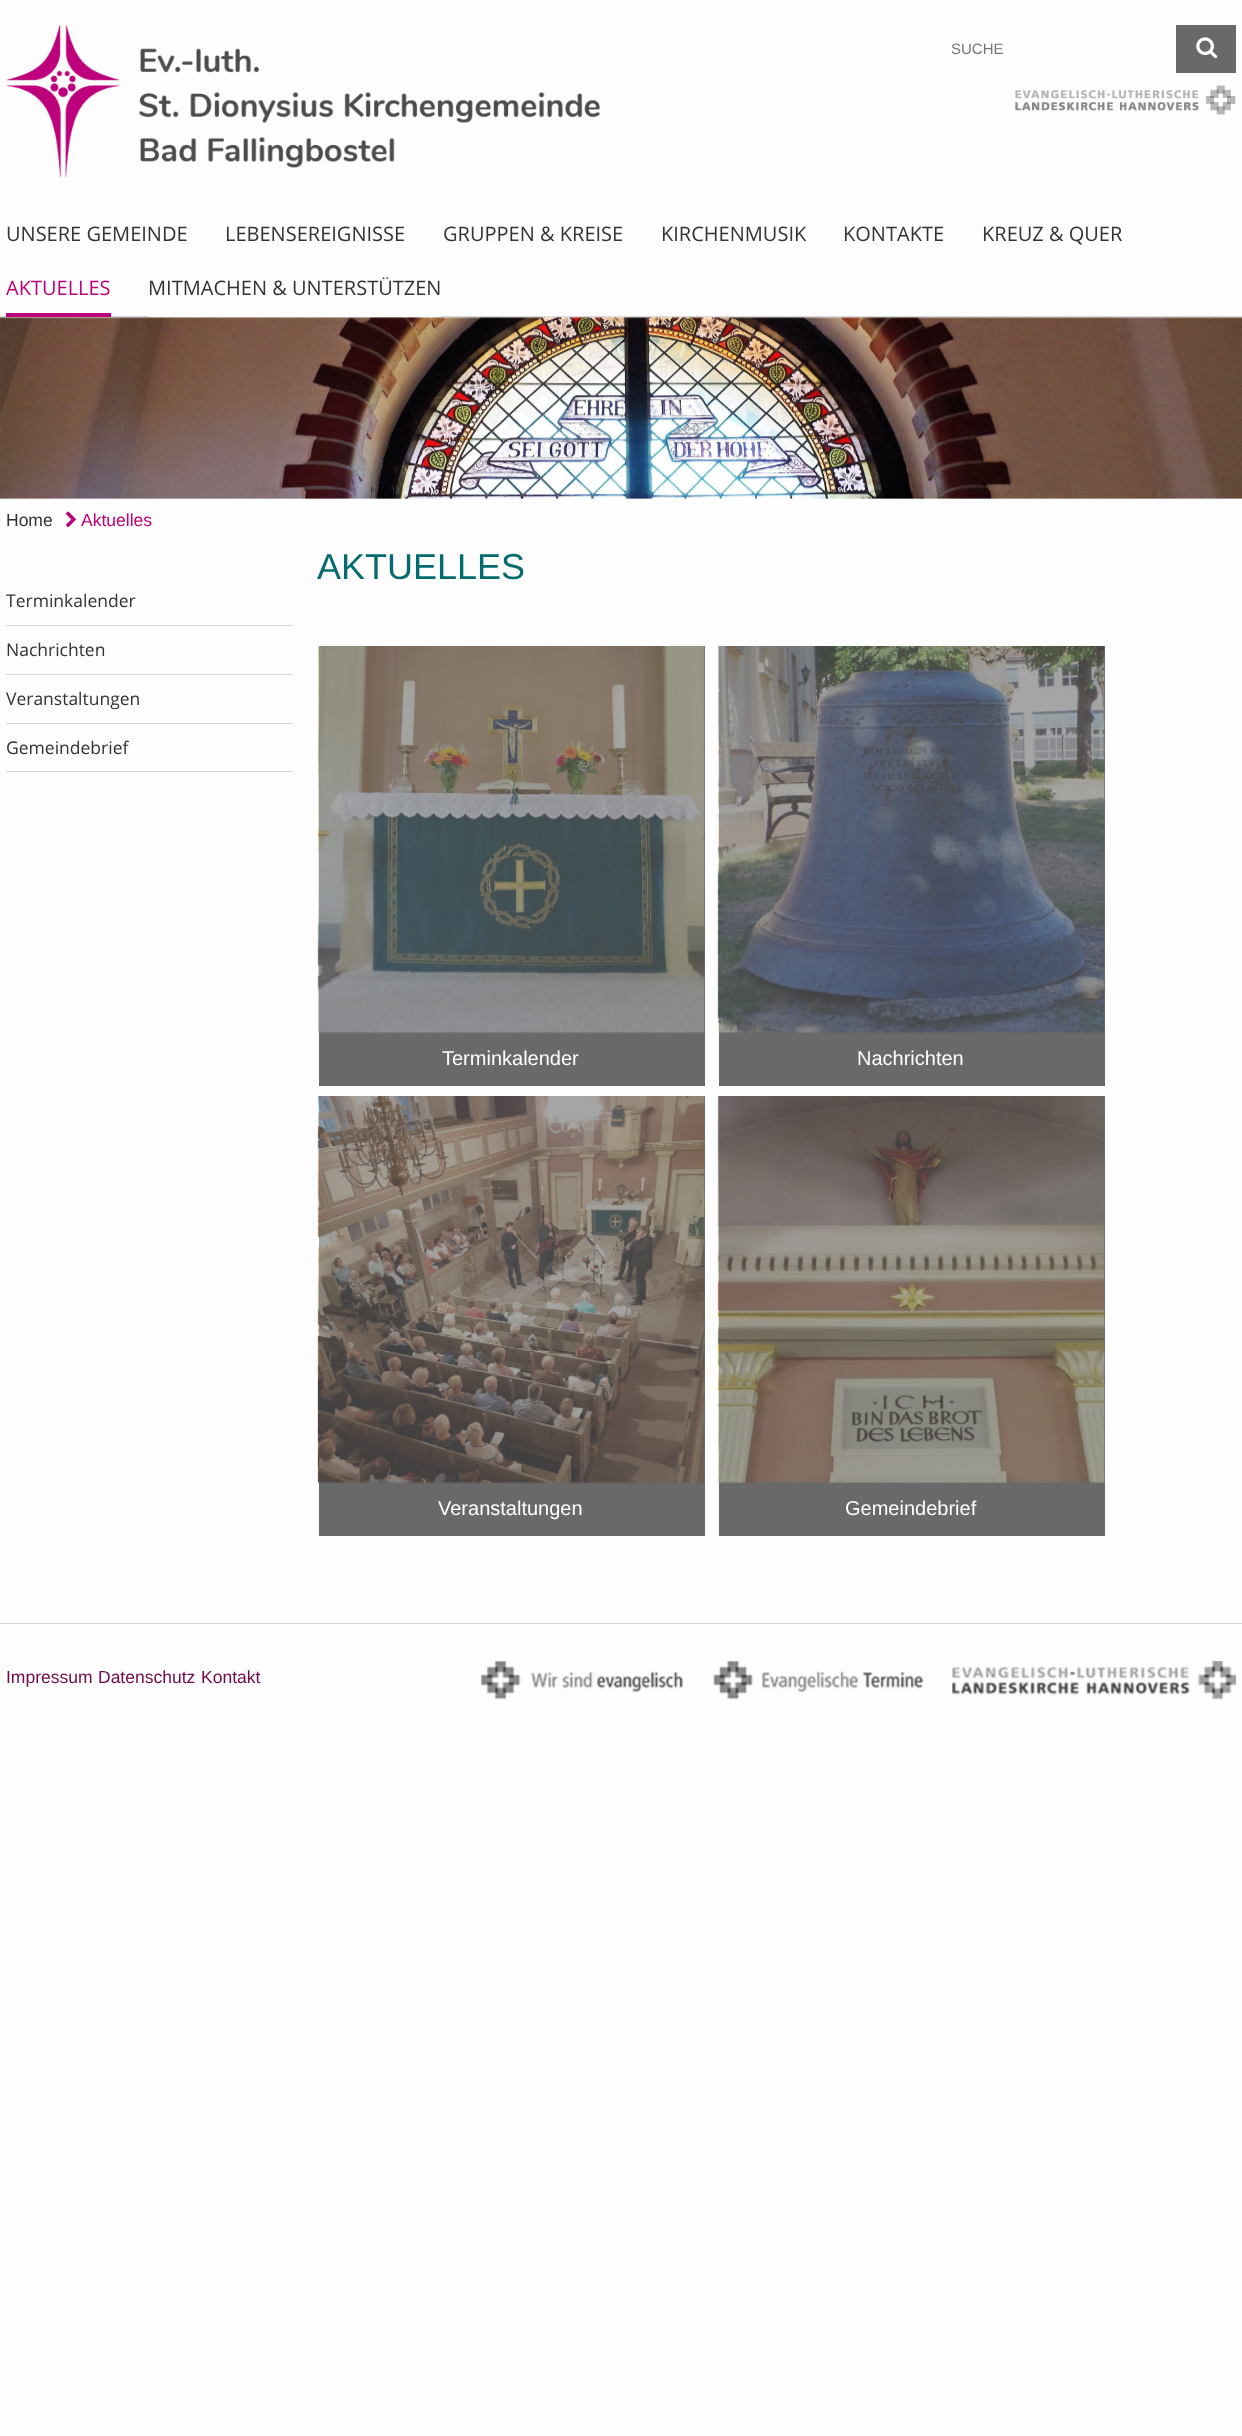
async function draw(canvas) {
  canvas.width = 1242;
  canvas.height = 2436;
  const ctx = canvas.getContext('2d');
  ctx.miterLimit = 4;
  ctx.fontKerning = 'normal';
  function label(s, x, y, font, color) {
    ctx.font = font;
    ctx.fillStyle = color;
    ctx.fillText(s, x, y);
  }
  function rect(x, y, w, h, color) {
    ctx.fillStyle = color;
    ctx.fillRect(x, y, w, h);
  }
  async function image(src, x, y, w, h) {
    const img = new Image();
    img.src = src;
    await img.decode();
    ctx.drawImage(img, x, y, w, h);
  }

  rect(0, 0, 1242, 2436, '#fdfdfd');
  rect(0, 316, 1242, 1, '#d8d8d8');
  await image('assets/img1.png', 6, 25, 595, 153);
  label('SUCHE', 951, 54, '15px Liberation Sans', '#757575');
  rect(1176, 25, 60, 48, '#696969');
  await image('assets/img2.png', 1196, 37, 22, 22);
  await image('assets/img3.png', 1015, 85, 221, 30);
  label('UNSERE GEMEINDE', 6, 241, '20px Open Sans', '#333');
  label('LEBENSEREIGNISSE', 225, 241, '20px Open Sans', '#333');
  label('GRUPPEN & KREISE', 443, 241, '20px Open Sans', '#333');
  label('KIRCHENMUSIK', 661, 241, '20px Open Sans', '#333');
  label('KONTAKTE', 843, 241, '20px Open Sans', '#333');
  label('KREUZ & QUER', 982, 241, '20px Open Sans', '#333');
  rect(6, 313, 105, 4, '#bc007a');
  label('AKTUELLES', 6, 295, '20px Open Sans', '#bc007a');
  rect(149, 316, 292, 1, '#fff');
  label('MITMACHEN & UNTERSTÜTZEN', 148, 295, '20px Open Sans', '#333');
  await image('assets/img4.png', 0, 317, 1242, 182);
  label('Home', 6, 526, '17.5px Liberation Sans', '#333');
  await image('assets/img5.png', 65, 511, 11, 17);
  label('Aktuelles', 81, 526, '17.5px Liberation Sans', '#bc007a');
  rect(6, 625, 287, 1, '#d8d8d8');
  label('Terminkalender', 6, 607, '17.5px Open Sans', '#333');
  rect(6, 674, 287, 1, '#d8d8d8');
  label('Nachrichten', 6, 656, '17.5px Open Sans', '#333');
  rect(6, 723, 287, 1, '#d8d8d8');
  label('Veranstaltungen', 6, 705, '17.5px Open Sans', '#333');
  rect(6, 771, 287, 1, '#d8d8d8');
  label('Gemeindebrief', 6, 754, '17.5px Open Sans', '#333');
  label('AKTUELLES', 317, 579, '36px Liberation Sans', '#066b6f');
  rect(319, 646, 386, 440, '#696969');
  await image('assets/img6.png', 317, 646, 388, 388);
  label('Terminkalender', 442, 1065, '20px Liberation Sans', '#fff');
  rect(719, 646, 386, 440, '#696969');
  await image('assets/img7.png', 717, 646, 388, 388);
  label('Nachrichten', 857, 1065, '20px Liberation Sans', '#fff');
  rect(319, 1096, 386, 440, '#696969');
  await image('assets/img8.png', 317, 1096, 388, 388);
  label('Veranstaltungen', 438, 1515, '20px Liberation Sans', '#fff');
  rect(719, 1096, 386, 440, '#696969');
  await image('assets/img9.png', 717, 1096, 388, 388);
  label('Gemeindebrief', 845, 1515, '20px Liberation Sans', '#fff');
  rect(0, 1623, 1242, 1, '#d8d8d8');
  label('Impressum', 6, 1683, '17.5px Liberation Sans', '#6f0b4c');
  label('Datenschutz', 98, 1683, '17.5px Liberation Sans', '#6f0b4c');
  label('Kontakt', 201, 1683, '17.5px Liberation Sans', '#6f0b4c');
  await image('assets/img10.png', 481, 1661, 203, 39);
  await image('assets/img11.png', 713, 1661, 211, 39);
  await image('assets/img12.png', 952, 1661, 284, 39);
}

draw(document.querySelector('canvas'));
